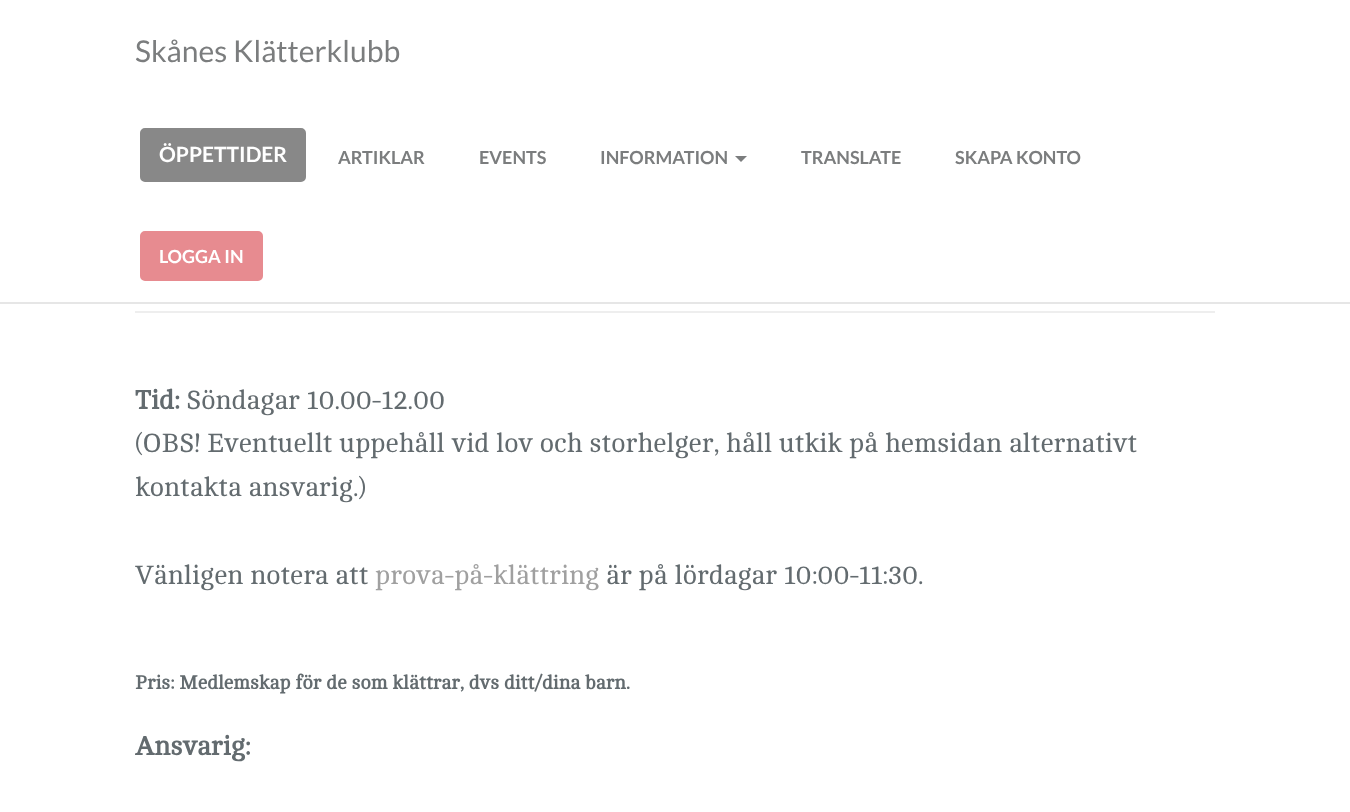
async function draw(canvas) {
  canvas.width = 1350;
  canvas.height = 812;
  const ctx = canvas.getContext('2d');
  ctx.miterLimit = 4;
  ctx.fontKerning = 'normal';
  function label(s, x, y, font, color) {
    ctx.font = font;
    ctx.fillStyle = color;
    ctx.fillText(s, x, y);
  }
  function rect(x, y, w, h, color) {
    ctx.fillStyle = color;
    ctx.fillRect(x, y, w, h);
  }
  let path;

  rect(0, 0, 1350, 812, '#fff');
  rect(0, 302, 1350, 2, '#e6e6e6');
  label('Skånes Klätterklubb', 135, 62, '30px Lato', '#7b7d7e');
  ctx.fillStyle = '#888';
  ctx.beginPath();
  ctx.roundRect(141, 129, 164, 52, 4);
  ctx.fill();
  ctx.strokeStyle = '#888';
  ctx.lineWidth = 2;
  ctx.stroke();
  label('ÖPPETTIDER', 159, 162, 'bold 21px Lato', '#fff');
  label('ARTIKLAR', 338, 164, 'bold 18px Lato', '#7b7d7e');
  label('EVENTS', 479, 164, 'bold 18px Lato', '#7b7d7e');
  label('INFORMATION', 600, 164, 'bold 18px Lato', '#7b7d7e');
  path = new Path2D('M735 156H747L741 162Z');
  ctx.fill(path);
  label('TRANSLATE', 801, 164, 'bold 18px Lato', '#7b7d7e');
  label('SKAPA KONTO', 955, 164, 'bold 18px Lato', '#7b7d7e');
  ctx.fillStyle = '#e78b90';
  ctx.beginPath();
  ctx.roundRect(141, 232, 121, 48, 4);
  ctx.fill();
  ctx.strokeStyle = '#e78b90';
  ctx.stroke();
  label('LOGGA IN', 159, 263, 'bold 18px Lato', '#fff');
  rect(135, 311, 1080, 2, '#eee');
  label('Tid:', 135, 409, 'bold 27px Cambo', '#636b6f');
  label('Söndagar 10.00-12.00', 186, 409, '27px Cambo', '#636b6f');
  label('(OBS! Eventuellt uppehåll vid lov och storhelger, håll utkik på hemsidan alternativt', 135, 452, '27px Cambo', '#636b6f');
  label('kontakta ansvarig.)', 135, 496, '27px Cambo', '#636b6f');
  label('Vänligen notera att', 135, 584, '27px Cambo', '#636b6f');
  label('prova-på-klättring', 375, 584, '27px Cambo', '#a0a0a0');
  label('är på lördagar 10:00-11:30.', 606, 584, '27px Cambo', '#636b6f');
  label('Pris: Medlemskap för de som klättrar, dvs ditt/dina barn.', 135, 689, 'bold 19.5px Cambo', '#636b6f');
  label('Ansvarig:', 135, 755, 'bold 27px Cambo', '#636b6f');
}

draw(document.querySelector('canvas'));
